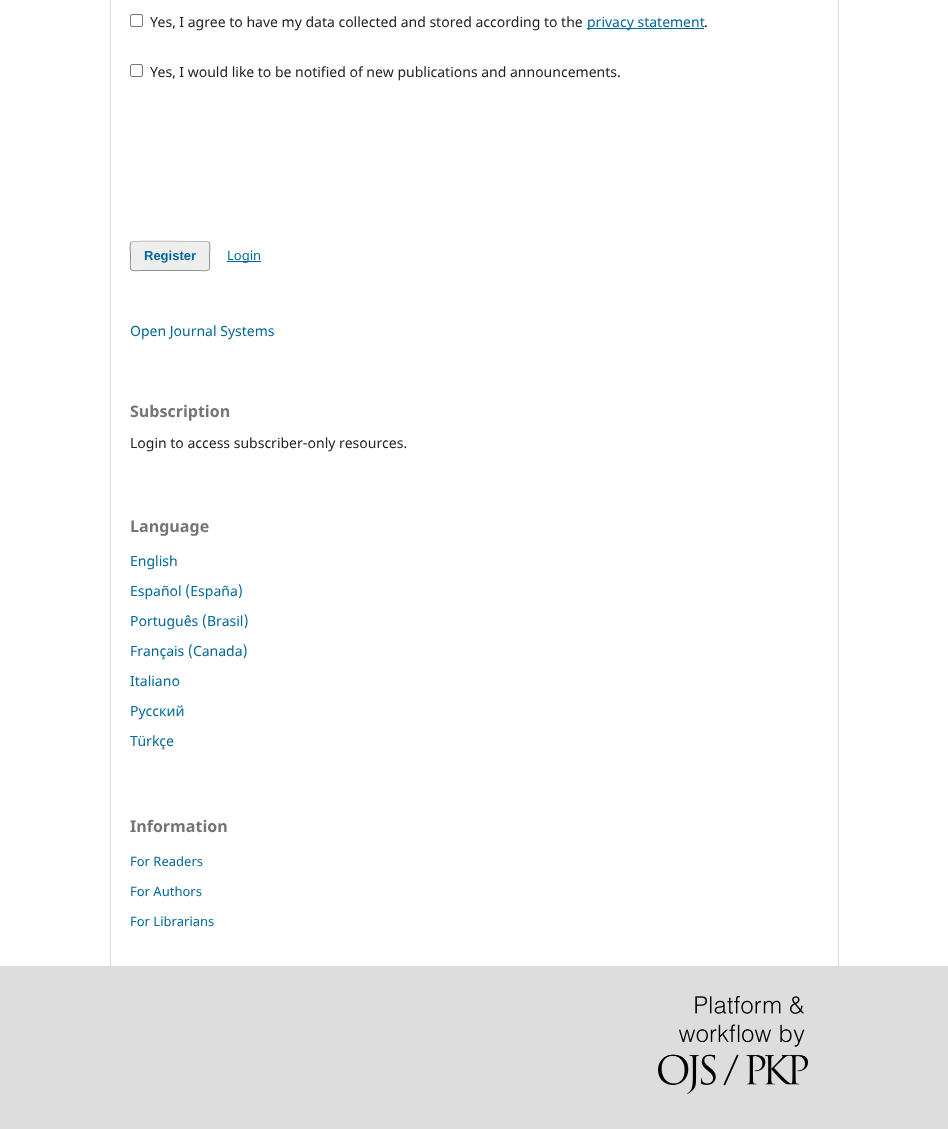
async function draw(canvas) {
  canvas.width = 948;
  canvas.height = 1129;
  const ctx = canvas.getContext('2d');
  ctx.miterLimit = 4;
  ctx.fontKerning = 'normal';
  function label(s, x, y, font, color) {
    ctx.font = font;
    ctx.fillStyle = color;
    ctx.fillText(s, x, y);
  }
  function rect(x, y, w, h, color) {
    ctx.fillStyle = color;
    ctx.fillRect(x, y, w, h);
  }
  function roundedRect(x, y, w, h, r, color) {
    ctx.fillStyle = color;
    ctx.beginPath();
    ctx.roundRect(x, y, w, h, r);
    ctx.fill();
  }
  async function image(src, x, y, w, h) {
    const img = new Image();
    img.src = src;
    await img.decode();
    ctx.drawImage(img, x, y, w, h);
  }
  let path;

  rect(0, 0, 948, 1129, '#fff');
  rect(110, 0, 1, 966, '#ddd');
  ctx.beginPath();
  ctx.roundRect(130.5, 14.5, 12, 12, 1.5);
  ctx.strokeStyle = '#767676';
  ctx.stroke();
  label('Yes, I agree to have my data collected and stored according to the', 150, 27, '14px Noto Sans', '#212121');
  rect(587, 28, 117, 1, '#006798');
  label('privacy statement', 587, 27, '14px Noto Sans', '#006798');
  label('.', 704, 27, '14px Noto Sans', '#212121');
  ctx.beginPath();
  ctx.roundRect(130.5, 64.5, 12, 12, 1.5);
  ctx.stroke();
  label('Yes, I would like to be notified of new publications and announcements.', 150, 77, '14px Noto Sans', '#212121');
  roundedRect(130, 241, 80, 30, 3, '#eee');
  path = new Path2D('M131 242H131.5C133.5 240.5 188 241.5 194.5 241.5H207L209 242');
  ctx.strokeStyle = '#bbb';
  ctx.stroke(path);
  path = new Path2D('M209 242C210.5 244 209.5 253.5 209.5 256C209.5 273.5 212.5 270.5 194.5 270.5H145.5C127.5 270.5 130.5 273.5 130.5 256C130.5 253.5 129.5 244 131 242');
  ctx.strokeStyle = '#00000066';
  ctx.stroke(path);
  label('Register', 144, 260, 'bold 13px Liberation Sans', '#006798');
  rect(227, 261, 34, 1, '#006798');
  label('Login', 227, 260, '13px Noto Sans', '#006798');
  rect(838, 0, 1, 966, '#ddd');
  label('Open Journal Systems', 130, 336, '14px Noto Sans', '#006798');
  label('Subscription', 130, 417, 'bold 16px Noto Sans', '#757575');
  label('Login to access subscriber-only resources.', 130, 448, '14px Noto Sans', '#212121');
  label('Language', 130, 532, 'bold 16px Noto Sans', '#757575');
  label('English', 130, 566, '14px Noto Sans', '#006798');
  label('Español (España)', 130, 596, '14px Noto Sans', '#006798');
  label('Português (Brasil)', 130, 626, '14px Noto Sans', '#006798');
  label('Français (Canada)', 130, 656, '14px Noto Sans', '#006798');
  label('Italiano', 130, 686, '14px Noto Sans', '#006798');
  label('Русский', 130, 716, '14px Noto Sans', '#006798');
  label('Türkçe', 130, 746, '14px Noto Sans', '#006798');
  label('Information', 130, 832, 'bold 16px Noto Sans', '#757575');
  label('For Readers', 130, 866, '13px Noto Sans', '#006798');
  label('For Authors', 130, 896, '13px Noto Sans', '#006798');
  label('For Librarians', 130, 926, '13px Noto Sans', '#006798');
  rect(0, 966, 948, 163, '#ddd');
  await image('assets/img1.png', 658, 996, 150, 98);
}

draw(document.querySelector('canvas'));
